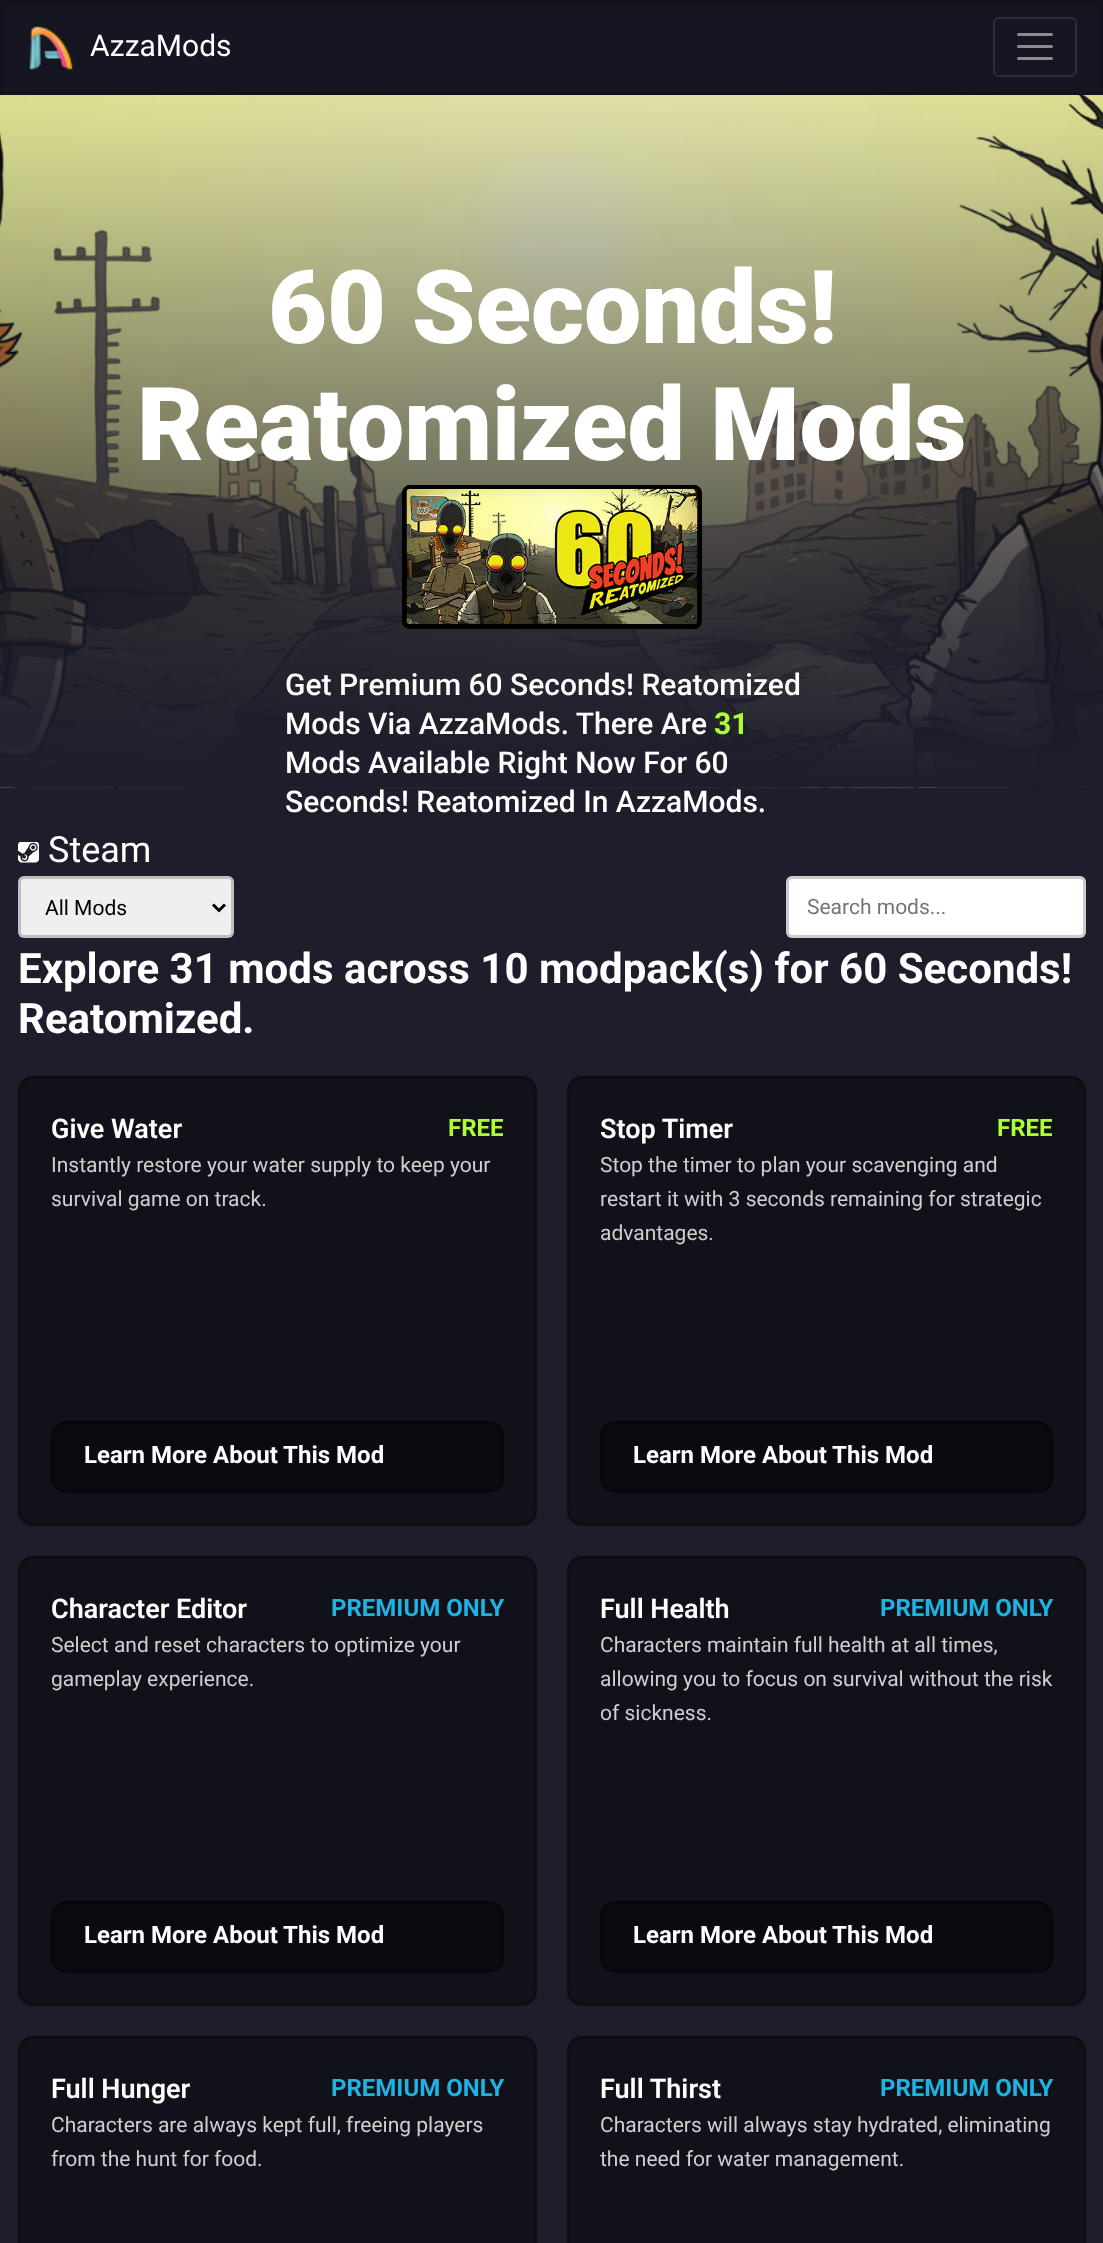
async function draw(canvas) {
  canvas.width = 1103;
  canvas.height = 2243;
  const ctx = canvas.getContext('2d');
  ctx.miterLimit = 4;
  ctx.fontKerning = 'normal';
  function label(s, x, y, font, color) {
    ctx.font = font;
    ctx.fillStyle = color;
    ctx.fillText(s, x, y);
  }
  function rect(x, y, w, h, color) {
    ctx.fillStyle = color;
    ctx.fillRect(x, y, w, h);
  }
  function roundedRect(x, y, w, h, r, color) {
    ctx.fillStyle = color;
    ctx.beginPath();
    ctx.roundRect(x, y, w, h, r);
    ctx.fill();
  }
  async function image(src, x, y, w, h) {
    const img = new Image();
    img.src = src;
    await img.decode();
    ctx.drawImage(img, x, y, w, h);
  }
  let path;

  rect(0, 0, 1103, 2243, '#1d1d2c');
  ctx.fillStyle = '#161622';
  ctx.beginPath();
  ctx.rect(1.5, 1.5, 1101, 92);
  ctx.fill();
  ctx.strokeStyle = '#12121b';
  ctx.lineWidth = 3;
  ctx.stroke();
  await image('assets/img1.png', 29, 26, 44, 44);
  label('AzzaMods', 90, 56, '30px Roboto', '#fff');
  ctx.beginPath();
  ctx.roundRect(994, 18, 82, 58, 5);
  ctx.strokeStyle = '#2d2d38';
  ctx.lineWidth = 2;
  ctx.stroke();
  path = new Path2D('M1018.5 34.5H1051.5M1018.5 46.5H1051.5M1018.5 58.5H1051.5');
  ctx.strokeStyle = '#8b8b91';
  ctx.lineWidth = 3;
  ctx.lineCap = 'round';
  ctx.stroke(path);
  await image('assets/img2.png', 0, 95, 1103, 693);
  label('60 Seconds!', 268, 343, '900 102px Roboto', '#fff');
  label('Reatomized Mods', 137, 460, '900 102px Roboto', '#fff');
  ctx.beginPath();
  ctx.roundRect(404.5, 487.5, 295, 139, 5.5);
  ctx.strokeStyle = '#000';
  ctx.lineWidth = 5;
  ctx.stroke();
  await image('assets/img3.png', 406, 489, 292, 135);
  label('Get Premium 60 Seconds! Reatomized', 285, 695, '500 30px Roboto', '#fff');
  label('Mods Via AzzaMods. There Are', 285, 734, '500 30px Roboto', '#fff');
  label('31', 714, 734, 'bold 30px Roboto', '#acff35');
  label('Mods Available Right Now For 60', 285, 773, '500 30px Roboto', '#fff');
  label('Seconds! Reatomized In AzzaMods.', 285, 812, '500 30px Roboto', '#fff');
  await image('assets/img4.png', 18, 842, 21, 21);
  label('Steam', 48, 862, '36px Roboto', '#fff');
  roundedRect(18, 876, 216, 62, 6, '#efefef');
  ctx.beginPath();
  ctx.roundRect(19.5, 877.5, 213, 59, 4.5);
  ctx.strokeStyle = '#00000033';
  ctx.lineWidth = 3;
  ctx.stroke();
  path = new Path2D('M213 904.5L219 910.5L225 904.5');
  ctx.strokeStyle = '#000';
  ctx.lineCap = 'butt';
  ctx.stroke(path);
  label('All Mods', 45, 915, '21px Roboto', '#000');
  roundedRect(786, 876, 300, 62, 6, '#fff');
  ctx.beginPath();
  ctx.roundRect(787.5, 877.5, 297, 59, 4.5);
  ctx.strokeStyle = '#00000033';
  ctx.stroke();
  label('Search mods...', 807, 914, '21px Roboto', '#757575');
  label('Explore 31 mods across 10 modpack(s) for 60 Seconds!', 18, 983, 'bold 42px Roboto', '#fff');
  label('Reatomized.', 18, 1033, 'bold 42px Roboto', '#fff');
  roundedRect(18, 1076, 519, 450, 15, '#11111a');
  ctx.beginPath();
  ctx.roundRect(19.5, 1077.5, 516, 447, 13.5);
  ctx.stroke();
  label('Give Water', 51, 1138, '600 27px Roboto', '#fff');
  label('FREE', 448, 1136, 'bold 24px Roboto', '#acff35');
  label('Instantly restore your water supply to keep your', 51, 1172, '21px Roboto', '#cfcfd1');
  label('survival game on track.', 51, 1206, '21px Roboto', '#cfcfd1');
  roundedRect(51, 1421, 453, 72, 15, '#0a0a10');
  ctx.beginPath();
  ctx.roundRect(52.5, 1422.5, 450, 69, 13.5);
  ctx.stroke();
  label('Learn More About This Mod', 84, 1463, 'bold 24px Roboto', '#fff');
  roundedRect(567, 1076, 519, 450, 15, '#11111a');
  ctx.beginPath();
  ctx.roundRect(568.5, 1077.5, 516, 447, 13.5);
  ctx.stroke();
  label('Stop Timer', 600, 1138, '600 27px Roboto', '#fff');
  label('FREE', 997, 1136, 'bold 24px Roboto', '#acff35');
  label('Stop the timer to plan your scavenging and', 600, 1172, '21px Roboto', '#cfcfd1');
  label('restart it with 3 seconds remaining for strategic', 600, 1206, '21px Roboto', '#cfcfd1');
  label('advantages.', 600, 1240, '21px Roboto', '#cfcfd1');
  roundedRect(600, 1421, 453, 72, 15, '#0a0a10');
  ctx.beginPath();
  ctx.roundRect(601.5, 1422.5, 450, 69, 13.5);
  ctx.stroke();
  label('Learn More About This Mod', 633, 1463, 'bold 24px Roboto', '#fff');
  roundedRect(18, 1556, 519, 450, 15, '#11111a');
  ctx.beginPath();
  ctx.roundRect(19.5, 1557.5, 516, 447, 13.5);
  ctx.stroke();
  label('Character Editor', 51, 1618, '600 27px Roboto', '#fff');
  label('PREMIUM ONLY', 331, 1616, 'bold 24px Roboto', '#1fb2e2');
  label('Select and reset characters to optimize your', 51, 1652, '21px Roboto', '#cfcfd1');
  label('gameplay experience.', 51, 1686, '21px Roboto', '#cfcfd1');
  roundedRect(51, 1901, 453, 72, 15, '#0a0a10');
  ctx.beginPath();
  ctx.roundRect(52.5, 1902.5, 450, 69, 13.5);
  ctx.stroke();
  label('Learn More About This Mod', 84, 1943, 'bold 24px Roboto', '#fff');
  roundedRect(567, 1556, 519, 450, 15, '#11111a');
  ctx.beginPath();
  ctx.roundRect(568.5, 1557.5, 516, 447, 13.5);
  ctx.stroke();
  label('Full Health', 600, 1618, '600 27px Roboto', '#fff');
  label('PREMIUM ONLY', 880, 1616, 'bold 24px Roboto', '#1fb2e2');
  label('Characters maintain full health at all times,', 600, 1652, '21px Roboto', '#cfcfd1');
  label('allowing you to focus on survival without the risk', 600, 1686, '21px Roboto', '#cfcfd1');
  label('of sickness.', 600, 1720, '21px Roboto', '#cfcfd1');
  roundedRect(600, 1901, 453, 72, 15, '#0a0a10');
  ctx.beginPath();
  ctx.roundRect(601.5, 1902.5, 450, 69, 13.5);
  ctx.stroke();
  label('Learn More About This Mod', 633, 1943, 'bold 24px Roboto', '#fff');
  roundedRect(18, 2036, 519, 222, 15, '#11111a');
  ctx.beginPath();
  ctx.roundRect(19.5, 2037.5, 516, 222, 13.5);
  ctx.stroke();
  label('Full Hunger', 51, 2098, '600 27px Roboto', '#fff');
  label('PREMIUM ONLY', 331, 2096, 'bold 24px Roboto', '#1fb2e2');
  label('Characters are always kept full, freeing players', 51, 2132, '21px Roboto', '#cfcfd1');
  label('from the hunt for food.', 51, 2166, '21px Roboto', '#cfcfd1');
  roundedRect(567, 2036, 519, 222, 15, '#11111a');
  ctx.beginPath();
  ctx.roundRect(568.5, 2037.5, 516, 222, 13.5);
  ctx.stroke();
  label('Full Thirst', 600, 2098, '600 27px Roboto', '#fff');
  label('PREMIUM ONLY', 880, 2096, 'bold 24px Roboto', '#1fb2e2');
  label('Characters will always stay hydrated, eliminating', 600, 2132, '21px Roboto', '#cfcfd1');
  label('the need for water management.', 600, 2166, '21px Roboto', '#cfcfd1');
}

draw(document.querySelector('canvas'));
